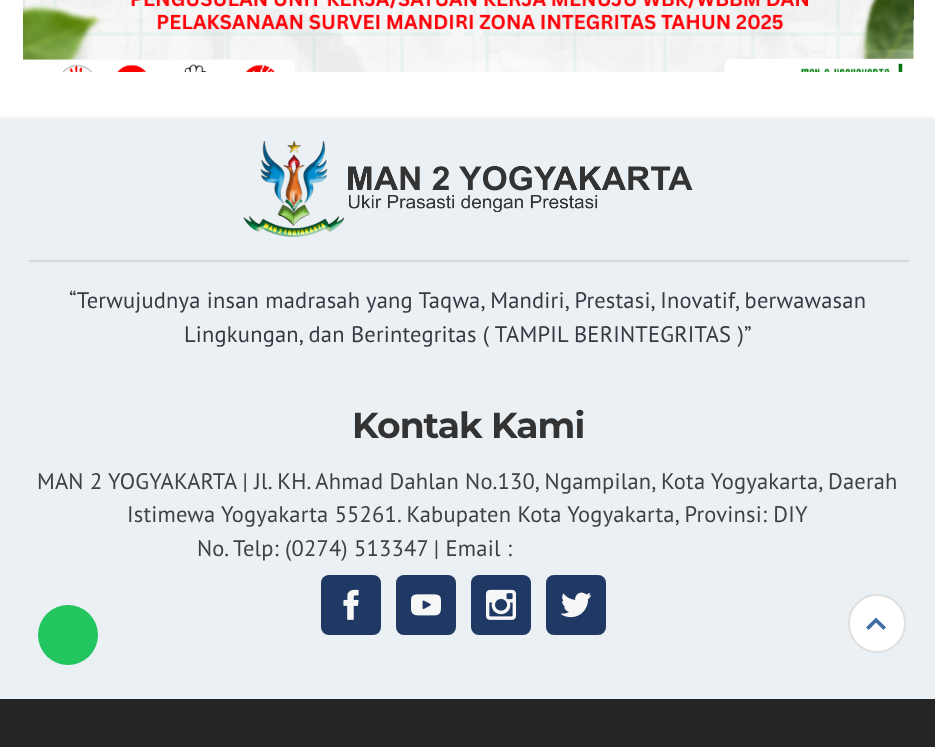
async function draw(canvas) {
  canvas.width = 935;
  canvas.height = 747;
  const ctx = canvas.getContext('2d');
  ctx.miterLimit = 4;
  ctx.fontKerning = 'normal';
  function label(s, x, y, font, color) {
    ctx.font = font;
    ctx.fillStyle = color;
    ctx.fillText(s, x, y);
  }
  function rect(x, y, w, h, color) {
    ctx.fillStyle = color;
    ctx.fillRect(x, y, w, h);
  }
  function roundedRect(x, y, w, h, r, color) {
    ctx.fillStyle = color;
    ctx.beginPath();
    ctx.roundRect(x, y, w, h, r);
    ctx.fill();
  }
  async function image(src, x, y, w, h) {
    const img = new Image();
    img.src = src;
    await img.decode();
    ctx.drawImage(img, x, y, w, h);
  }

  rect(0, 0, 935, 747, '#fff');
  await image('assets/img1.png', 23, 0, 891, 72);
  ctx.fillStyle = '#f7f7f7';
  ctx.beginPath();
  ctx.arc(458.5, 32.5, 5.5, 0, 2 * Math.PI);
  ctx.fill();
  roundedRect(473, 27, 10, 11, 5, '#ffffff8c');
  rect(0, 118, 935, 581, '#ebf0f4');
  rect(0, 116, 935, 2, '#fbfbfb');
  await image('assets/img2.png', 243, 141, 450, 96);
  rect(29, 260, 880, 2, '#d4d8dc');
  ctx.letterSpacing = '0.2px';
  label('“Terwujudnya insan madrasah yang Taqwa, Mandiri, Prestasi, Inovatif, berwawasan', 69, 308, '22.5px PT Sans', '#343a40');
  label('Lingkungan, dan Berintegritas ( TAMPIL BERINTEGRITAS )”', 184, 342, '22.5px PT Sans', '#343a40');
  ctx.letterSpacing = '-0.9px';
  label('Kontak Kami', 352, 438, 'bold 36px Montserrat', '#333');
  ctx.letterSpacing = '0.2px';
  label('MAN 2 YOGYAKARTA | Jl. KH. Ahmad Dahlan No.130, Ngampilan, Kota Yogyakarta, Daerah', 37, 489, '22.5px PT Sans', '#404040');
  label('Istimewa Yogyakarta 55261. Kabupaten Kota Yogyakarta, Provinsi: DIY', 127, 522, '22.5px PT Sans', '#404040');
  label('No. Telp: (0274) 513347 | Email :', 197, 556, '22.5px PT Sans', '#404040');
  roundedRect(321, 575, 60, 60, 8, '#1f3864');
  await image('assets/img3.png', 343, 589, 16, 31);
  roundedRect(396, 575, 60, 60, 8, '#1f3864');
  await image('assets/img4.png', 411, 594, 30, 22);
  roundedRect(471, 575, 60, 60, 8, '#1f3864');
  await image('assets/img5.png', 486, 589, 30, 31);
  roundedRect(546, 575, 60, 60, 8, '#1f3864');
  await image('assets/img6.png', 561, 592, 30, 26);
  rect(0, 699, 935, 48, '#242424');
  roundedRect(848, 594, 58, 59, 29, '#fff');
  ctx.beginPath();
  ctx.roundRect(849, 595, 56, 57, 28);
  ctx.strokeStyle = '#0000001f';
  ctx.lineWidth = 2;
  ctx.stroke();
  await image('assets/img7.png', 866, 617, 20, 13);
  ctx.fillStyle = '#22c55e';
  ctx.beginPath();
  ctx.arc(68, 635, 30, 0, 2 * Math.PI);
  ctx.fill();
}

draw(document.querySelector('canvas'));
